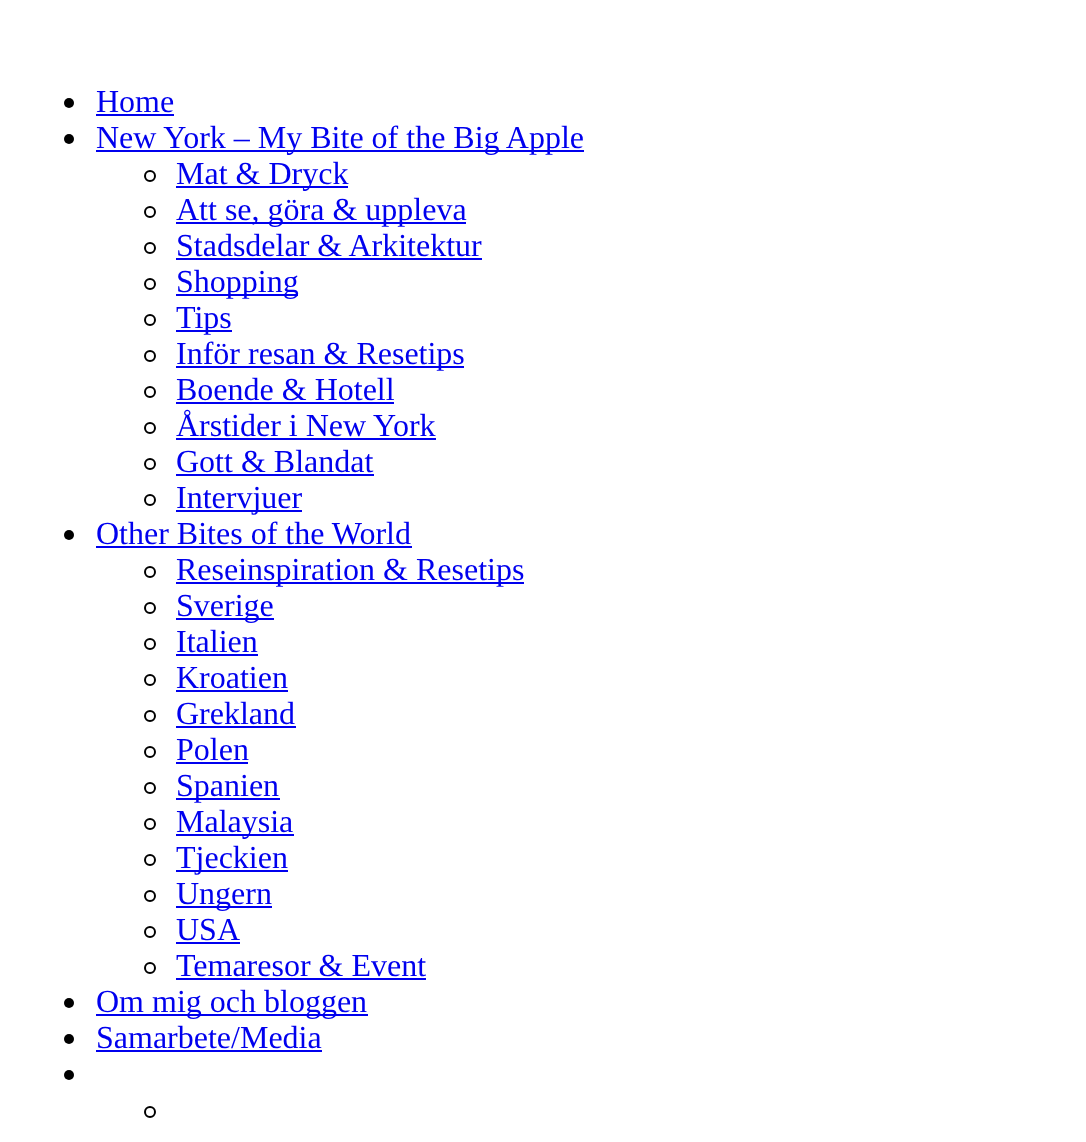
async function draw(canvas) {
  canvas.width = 1086;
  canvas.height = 1142;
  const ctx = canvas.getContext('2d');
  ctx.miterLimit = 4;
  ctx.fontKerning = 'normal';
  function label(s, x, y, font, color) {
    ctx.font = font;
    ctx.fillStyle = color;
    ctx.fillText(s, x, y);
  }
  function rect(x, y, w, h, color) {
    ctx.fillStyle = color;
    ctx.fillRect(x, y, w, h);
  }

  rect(0, 0, 1086, 1142, '#fff');
  ctx.fillStyle = '#000';
  ctx.beginPath();
  ctx.arc(69, 103, 5, 0, 2 * Math.PI);
  ctx.fill();
  label('Home', 96, 112, '32px Liberation Serif', '#00e');
  rect(96, 114, 78, 2, '#00e');
  ctx.fillStyle = '#000';
  ctx.beginPath();
  ctx.arc(69, 139, 5, 0, 2 * Math.PI);
  ctx.fill();
  rect(96, 150, 488, 2, '#00e');
  label('New York – My Bite of the Big Apple', 96, 148, '32px Liberation Serif', '#00e');
  ctx.beginPath();
  ctx.arc(150, 176, 5, 0, 2 * Math.PI);
  ctx.strokeStyle = '#000';
  ctx.lineWidth = 2;
  ctx.stroke();
  rect(176, 186, 172, 2, '#00e');
  label('Mat & Dryck', 176, 184, '32px Liberation Serif', '#00e');
  ctx.beginPath();
  ctx.arc(150, 212, 5, 0, 2 * Math.PI);
  ctx.stroke();
  rect(176, 222, 290, 2, '#00e');
  label('Att se, göra & uppleva', 176, 220, '32px Liberation Serif', '#00e');
  ctx.beginPath();
  ctx.arc(150, 248, 5, 0, 2 * Math.PI);
  ctx.stroke();
  label('Stadsdelar & Arkitektur', 176, 256, '32px Liberation Serif', '#00e');
  rect(176, 258, 306, 2, '#00e');
  ctx.beginPath();
  ctx.arc(150, 284, 5, 0, 2 * Math.PI);
  ctx.stroke();
  rect(176, 294, 122, 2, '#00e');
  label('Shopping', 176, 292, '32px Liberation Serif', '#00e');
  ctx.beginPath();
  ctx.arc(150, 320, 5, 0, 2 * Math.PI);
  ctx.stroke();
  rect(176, 330, 56, 2, '#00e');
  label('Tips', 176, 328, '32px Liberation Serif', '#00e');
  ctx.beginPath();
  ctx.arc(150, 356, 5, 0, 2 * Math.PI);
  ctx.stroke();
  rect(176, 366, 288, 2, '#00e');
  label('Inför resan & Resetips', 176, 364, '32px Liberation Serif', '#00e');
  ctx.beginPath();
  ctx.arc(150, 392, 5, 0, 2 * Math.PI);
  ctx.stroke();
  label('Boende & Hotell', 176, 400, '32px Liberation Serif', '#00e');
  rect(176, 402, 218, 2, '#00e');
  ctx.beginPath();
  ctx.arc(150, 428, 5, 0, 2 * Math.PI);
  ctx.stroke();
  label('Årstider i New York', 176, 436, '32px Liberation Serif', '#00e');
  rect(176, 438, 260, 2, '#00e');
  ctx.beginPath();
  ctx.arc(150, 464, 5, 0, 2 * Math.PI);
  ctx.stroke();
  label('Gott & Blandat', 176, 472, '32px Liberation Serif', '#00e');
  rect(176, 474, 198, 2, '#00e');
  ctx.beginPath();
  ctx.arc(150, 500, 5, 0, 2 * Math.PI);
  ctx.stroke();
  rect(176, 510, 126, 2, '#00e');
  label('Intervjuer', 176, 508, '32px Liberation Serif', '#00e');
  ctx.fillStyle = '#000';
  ctx.beginPath();
  ctx.arc(69, 535, 5, 0, 2 * Math.PI);
  ctx.fill();
  label('Other Bites of the World', 96, 544, '32px Liberation Serif', '#00e');
  rect(96, 546, 316, 2, '#00e');
  ctx.beginPath();
  ctx.arc(150, 572, 5, 0, 2 * Math.PI);
  ctx.stroke();
  rect(176, 582, 348, 2, '#00e');
  label('Reseinspiration & Resetips', 176, 580, '32px Liberation Serif', '#00e');
  ctx.beginPath();
  ctx.arc(150, 608, 5, 0, 2 * Math.PI);
  ctx.stroke();
  rect(176, 618, 98, 2, '#00e');
  label('Sverige', 176, 616, '32px Liberation Serif', '#00e');
  ctx.beginPath();
  ctx.arc(150, 644, 5, 0, 2 * Math.PI);
  ctx.stroke();
  label('Italien', 176, 652, '32px Liberation Serif', '#00e');
  rect(176, 654, 82, 2, '#00e');
  ctx.beginPath();
  ctx.arc(150, 680, 5, 0, 2 * Math.PI);
  ctx.stroke();
  label('Kroatien', 176, 688, '32px Liberation Serif', '#00e');
  rect(176, 690, 112, 2, '#00e');
  ctx.beginPath();
  ctx.arc(150, 716, 5, 0, 2 * Math.PI);
  ctx.stroke();
  label('Grekland', 176, 724, '32px Liberation Serif', '#00e');
  rect(176, 726, 120, 2, '#00e');
  ctx.beginPath();
  ctx.arc(150, 752, 5, 0, 2 * Math.PI);
  ctx.stroke();
  label('Polen', 176, 760, '32px Liberation Serif', '#00e');
  rect(176, 762, 72, 2, '#00e');
  ctx.beginPath();
  ctx.arc(150, 788, 5, 0, 2 * Math.PI);
  ctx.stroke();
  rect(176, 798, 104, 2, '#00e');
  label('Spanien', 176, 796, '32px Liberation Serif', '#00e');
  ctx.beginPath();
  ctx.arc(150, 824, 5, 0, 2 * Math.PI);
  ctx.stroke();
  rect(176, 834, 118, 2, '#00e');
  label('Malaysia', 176, 832, '32px Liberation Serif', '#00e');
  ctx.beginPath();
  ctx.arc(150, 860, 5, 0, 2 * Math.PI);
  ctx.stroke();
  rect(176, 870, 112, 2, '#00e');
  label('Tjeckien', 176, 868, '32px Liberation Serif', '#00e');
  ctx.beginPath();
  ctx.arc(150, 896, 5, 0, 2 * Math.PI);
  ctx.stroke();
  rect(176, 906, 96, 2, '#00e');
  label('Ungern', 176, 904, '32px Liberation Serif', '#00e');
  ctx.beginPath();
  ctx.arc(150, 932, 5, 0, 2 * Math.PI);
  ctx.stroke();
  label('USA', 176, 940, '32px Liberation Serif', '#00e');
  rect(176, 942, 64, 2, '#00e');
  ctx.beginPath();
  ctx.arc(150, 968, 5, 0, 2 * Math.PI);
  ctx.stroke();
  label('Temaresor & Event', 176, 976, '32px Liberation Serif', '#00e');
  rect(176, 978, 250, 2, '#00e');
  ctx.fillStyle = '#000';
  ctx.beginPath();
  ctx.arc(69, 1003, 5, 0, 2 * Math.PI);
  ctx.fill();
  rect(96, 1014, 272, 2, '#00e');
  label('Om mig och bloggen', 96, 1012, '32px Liberation Serif', '#00e');
  ctx.fillStyle = '#000';
  ctx.beginPath();
  ctx.arc(69, 1039, 5, 0, 2 * Math.PI);
  ctx.fill();
  label('Samarbete/Media', 96, 1048, '32px Liberation Serif', '#00e');
  rect(96, 1050, 226, 2, '#00e');
  ctx.fillStyle = '#000';
  ctx.beginPath();
  ctx.arc(69, 1075, 5, 0, 2 * Math.PI);
  ctx.fill();
  ctx.beginPath();
  ctx.arc(150, 1112, 5, 0, 2 * Math.PI);
  ctx.stroke();
}

draw(document.querySelector('canvas'));
